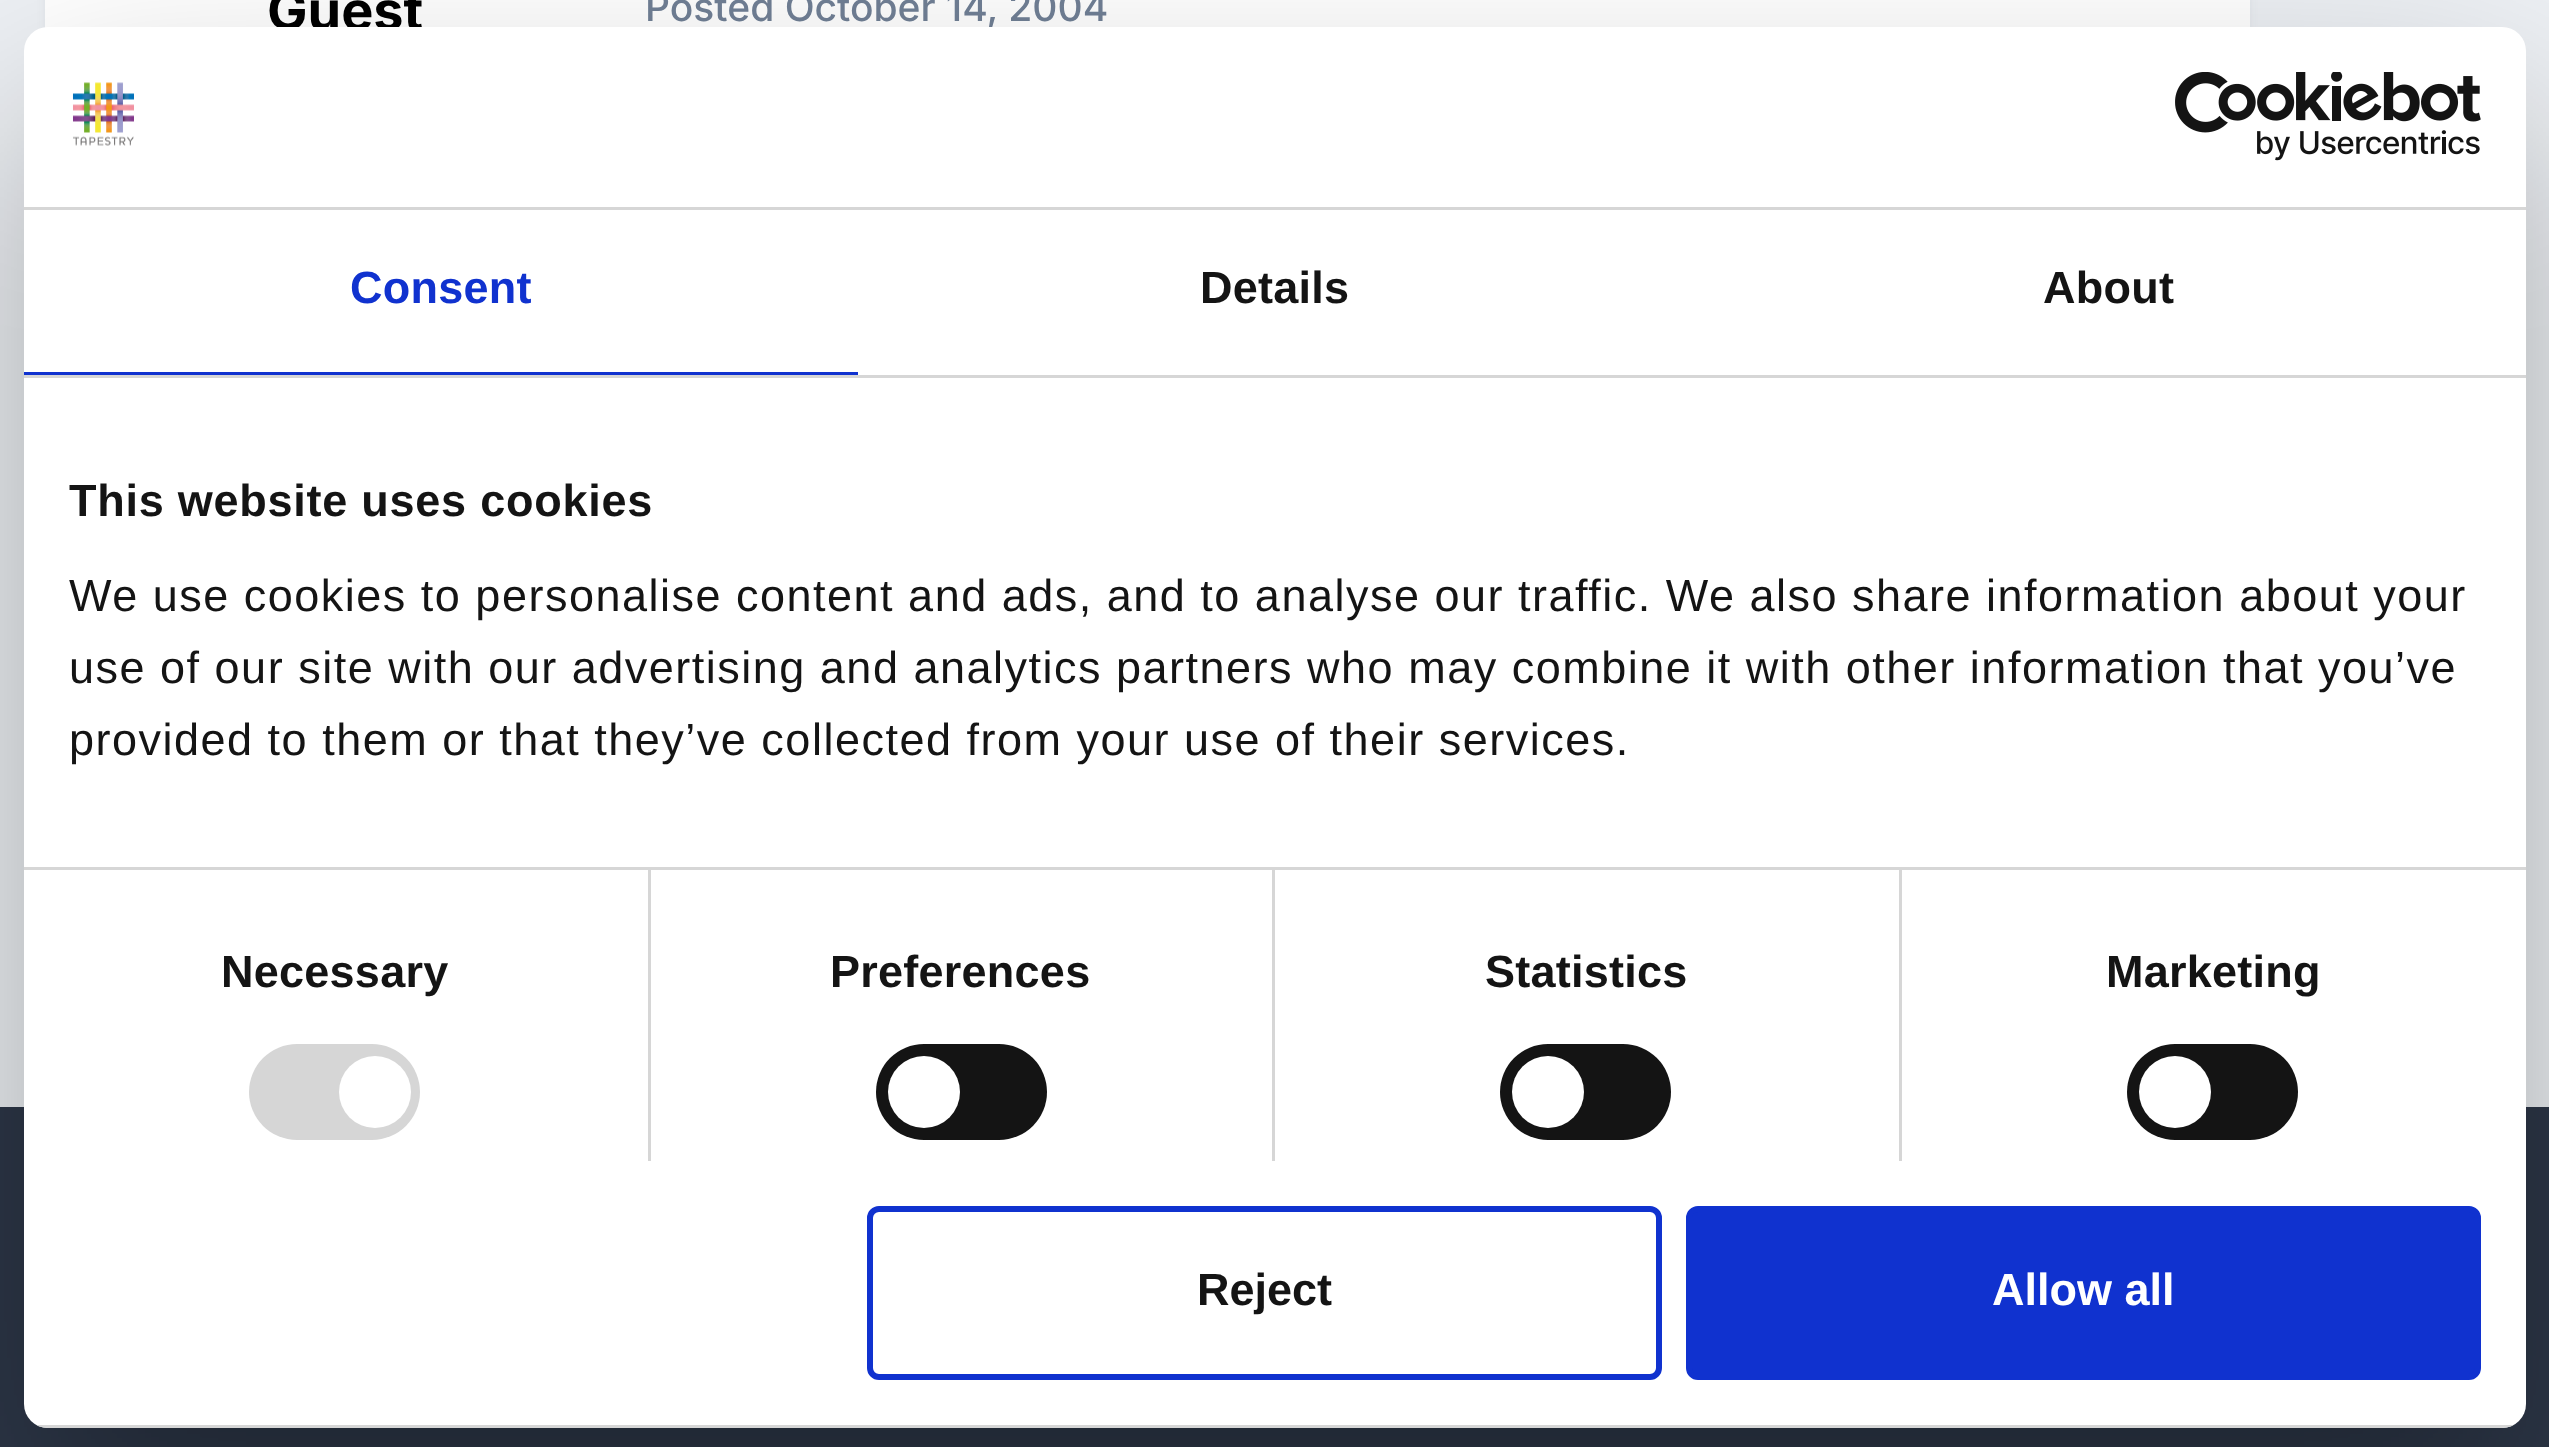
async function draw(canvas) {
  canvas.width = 2549;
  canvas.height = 1447;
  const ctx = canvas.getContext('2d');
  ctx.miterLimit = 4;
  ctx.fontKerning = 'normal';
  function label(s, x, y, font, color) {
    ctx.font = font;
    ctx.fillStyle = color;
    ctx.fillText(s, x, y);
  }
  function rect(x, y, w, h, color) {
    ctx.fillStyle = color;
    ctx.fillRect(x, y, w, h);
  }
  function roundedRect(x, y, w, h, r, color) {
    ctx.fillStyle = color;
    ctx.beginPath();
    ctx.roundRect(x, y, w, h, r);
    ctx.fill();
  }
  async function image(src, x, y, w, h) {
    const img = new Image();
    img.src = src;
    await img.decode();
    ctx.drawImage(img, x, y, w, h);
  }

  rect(0, 0, 2549, 1447, '#edf0f4');
  ctx.fillStyle = '#2d37481a';
  ctx.filter = 'blur(6px)';
  ctx.beginPath();
  ctx.roundRect(48, -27, 2199, 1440, 9);
  ctx.fill();
  ctx.filter = 'none';
  rect(45, 0, 2205, 28, '#fff');
  label('Guest', 267, 30, 'bold 54px Inter', '#000');
  label('Posted October 14, 2004', 645, 21, '500 39px Inter', '#718096');
  rect(0, 1107, 2549, 340, '#2d3748');
  ctx.fillStyle = '#0000004d';
  ctx.filter = 'blur(102px)';
  ctx.beginPath();
  ctx.roundRect(24, 123, 2502, 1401, 24);
  ctx.fill();
  ctx.filter = 'none';
  roundedRect(24, 27, 2502, 1401, 24, '#fff');
  rect(24, 207, 2502, 3, '#d6d6d6');
  await image('assets/img1.png', 72, 82, 62, 64);
  await image('assets/img2.png', 2175, 72, 306, 89);
  rect(24, 375, 2502, 3, '#d6d6d6');
  rect(24, 372, 834, 3, '#1032cf');
  ctx.letterSpacing = '0.25px';
  label('Consent', 350, 303, 'bold 45px Liberation Sans', '#1032cf');
  label('Details', 1200, 303, 'bold 45px Liberation Sans', '#141414');
  label('About', 2043, 303, 'bold 45px Liberation Sans', '#141414');
  rect(24, 867, 2502, 3, '#d6d6d6');
  ctx.letterSpacing = '0.75px';
  label('This website uses cookies', 69, 516, 'bold 45px Liberation Sans', '#141414');
  ctx.letterSpacing = '1.5px';
  label('We use cookies to personalise content and ads, and to analyse our traffic. We also share information about your', 69, 611, '45px Liberation Sans', '#141414');
  label('use of our site with our advertising and analytics partners who may combine it with other information that you’ve', 69, 683, '45px Liberation Sans', '#141414');
  label('provided to them or that they’ve collected from your use of their services.', 69, 755, '45px Liberation Sans', '#141414');
  rect(648, 870, 3, 291, '#d6d6d6');
  ctx.letterSpacing = '0.25px';
  label('Necessary', 221, 987, 'bold 45px Liberation Sans', '#141414');
  roundedRect(249, 1044, 171, 96, 48, '#d6d6d6');
  ctx.fillStyle = '#fff';
  ctx.beginPath();
  ctx.arc(375, 1092, 36, 0, 2 * Math.PI);
  ctx.fill();
  rect(1272, 870, 3, 291, '#d6d6d6');
  label('Preferences', 830, 987, 'bold 45px Liberation Sans', '#141414');
  roundedRect(876, 1044, 171, 96, 48, '#141414');
  ctx.fillStyle = '#fff';
  ctx.beginPath();
  ctx.arc(924, 1092, 36, 0, 2 * Math.PI);
  ctx.fill();
  rect(1899, 870, 3, 291, '#d6d6d6');
  label('Statistics', 1485, 987, 'bold 45px Liberation Sans', '#141414');
  roundedRect(1500, 1044, 171, 96, 48, '#141414');
  ctx.fillStyle = '#fff';
  ctx.beginPath();
  ctx.arc(1548, 1092, 36, 0, 2 * Math.PI);
  ctx.fill();
  label('Marketing', 2106, 987, 'bold 45px Liberation Sans', '#141414');
  roundedRect(2127, 1044, 171, 96, 48, '#141414');
  ctx.fillStyle = '#fff';
  ctx.beginPath();
  ctx.arc(2175, 1092, 36, 0, 2 * Math.PI);
  ctx.fill();
  ctx.save();
  ctx.beginPath();
  ctx.roundRect(24, 27, 2502, 1401, 24);
  ctx.clip();
  rect(36, 1425, 2478, 3, '#d6d6d6');
  ctx.restore();
  ctx.beginPath();
  ctx.roundRect(870, 1209, 789, 168, 9);
  ctx.strokeStyle = '#1032cf';
  ctx.lineWidth = 6;
  ctx.stroke();
  ctx.letterSpacing = '0px';
  label('Reject', 1197, 1305, 'bold 45px Liberation Sans', '#141414');
  ctx.fillStyle = '#1032cf';
  ctx.beginPath();
  ctx.roundRect(1689, 1209, 789, 168, 9);
  ctx.fill();
  ctx.stroke();
  label('Allow all', 1992, 1305, 'bold 45px Liberation Sans', '#fff');
}

draw(document.querySelector('canvas'));
